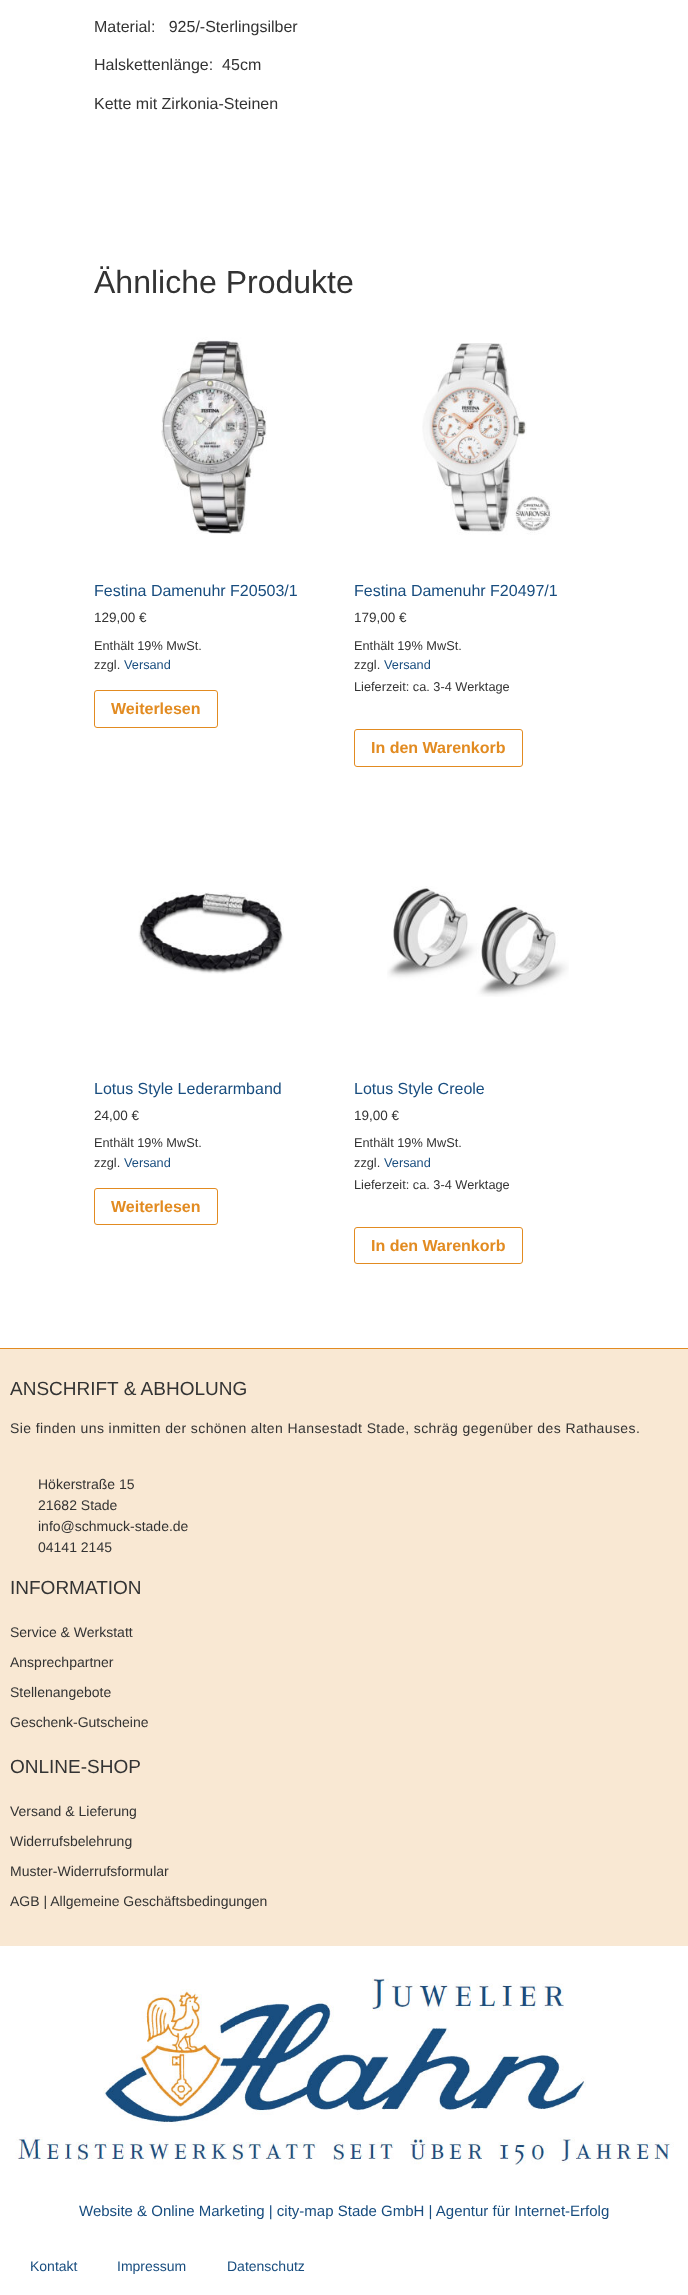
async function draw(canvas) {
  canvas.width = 688;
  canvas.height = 2295;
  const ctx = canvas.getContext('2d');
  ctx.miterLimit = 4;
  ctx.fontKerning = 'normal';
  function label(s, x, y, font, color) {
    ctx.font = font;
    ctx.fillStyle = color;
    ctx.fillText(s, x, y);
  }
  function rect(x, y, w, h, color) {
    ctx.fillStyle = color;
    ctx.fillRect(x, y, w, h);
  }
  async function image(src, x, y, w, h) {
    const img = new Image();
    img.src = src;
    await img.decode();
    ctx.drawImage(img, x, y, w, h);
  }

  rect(0, 0, 688, 2295, '#fff');
  label('Material:   925/-Sterlingsilber', 94, 32, '16px Liberation Sans', '#333');
  label('Halskettenlänge:  45cm', 94, 70, '16px Liberation Sans', '#333');
  label('Kette mit Zirkonia-Steinen', 94, 109, '16px Liberation Sans', '#333');
  label('Ähnliche Produkte', 94, 293, '32px Liberation Sans', '#333');
  await image('assets/img1.png', 161, 337, 106, 197);
  label('Festina Damenuhr F20503/1', 94, 596, '16px Liberation Sans', '#184d7f');
  label('129,00 €', 94, 622, '13.5px Liberation Sans', '#333');
  label('Enthält 19% MwSt.', 94, 650, '12.75px Liberation Sans', '#333');
  label('zzgl.', 94, 669, '12.75px Liberation Sans', '#333');
  label('Versand', 124, 669, '12.75px Liberation Sans', '#184d7f');
  ctx.beginPath();
  ctx.roundRect(94.5, 690.5, 123, 37, 2.5);
  ctx.strokeStyle = '#e28b21';
  ctx.stroke();
  label('Weiterlesen', 111, 714, 'bold 16px Liberation Sans', '#e28b21');
  await image('assets/img2.png', 422, 343, 130, 192);
  label('Festina Damenuhr F20497/1', 354, 596, '16px Liberation Sans', '#184d7f');
  label('179,00 €', 354, 622, '13.5px Liberation Sans', '#333');
  label('Enthält 19% MwSt.', 354, 650, '12.75px Liberation Sans', '#333');
  label('zzgl.', 354, 669, '12.75px Liberation Sans', '#333');
  label('Versand', 384, 669, '12.75px Liberation Sans', '#184d7f');
  label('Lieferzeit: ca. 3-4 Werktage', 354, 691, '12.75px Liberation Sans', '#333');
  ctx.beginPath();
  ctx.roundRect(354.5, 729.5, 168, 37, 2.5);
  ctx.stroke();
  label('In den Warenkorb', 371, 753, 'bold 16px Liberation Sans', '#e28b21');
  await image('assets/img3.png', 138, 892, 146, 82);
  label('Lotus Style Lederarmband', 94, 1094, '16px Liberation Sans', '#184d7f');
  label('24,00 €', 94, 1120, '13.5px Liberation Sans', '#333');
  label('Enthält 19% MwSt.', 94, 1147, '12.75px Liberation Sans', '#333');
  label('zzgl.', 94, 1167, '12.75px Liberation Sans', '#333');
  label('Versand', 124, 1167, '12.75px Liberation Sans', '#184d7f');
  ctx.beginPath();
  ctx.roundRect(94.5, 1188.5, 123, 36, 2.5);
  ctx.stroke();
  label('Weiterlesen', 111, 1212, 'bold 16px Liberation Sans', '#e28b21');
  await image('assets/img4.png', 387, 886, 182, 111);
  label('Lotus Style Creole', 354, 1094, '16px Liberation Sans', '#184d7f');
  label('19,00 €', 354, 1120, '13.5px Liberation Sans', '#333');
  label('Enthält 19% MwSt.', 354, 1147, '12.75px Liberation Sans', '#333');
  label('zzgl.', 354, 1167, '12.75px Liberation Sans', '#333');
  label('Versand', 384, 1167, '12.75px Liberation Sans', '#184d7f');
  label('Lieferzeit: ca. 3-4 Werktage', 354, 1189, '12.75px Liberation Sans', '#333');
  ctx.beginPath();
  ctx.roundRect(354.5, 1227.5, 168, 36, 2.5);
  ctx.stroke();
  label('In den Warenkorb', 371, 1251, 'bold 16px Liberation Sans', '#e28b21');
  rect(0, 1349, 688, 597, '#f9e8d3');
  rect(0, 1348, 688, 1, '#e28b21');
  label('ANSCHRIFT & ABHOLUNG', 10, 1395, '19px Liberation Sans', '#333');
  ctx.letterSpacing = '0.4px';
  label('Sie finden uns inmitten der schönen alten Hansestadt Stade, schräg gegenüber des Rathauses.', 10, 1433, '14px Liberation Sans', '#333');
  ctx.letterSpacing = '0px';
  label('Hökerstraße 15', 38, 1489, '14px Liberation Sans', '#333');
  label('21682 Stade', 38, 1510, '14px Liberation Sans', '#333');
  label('info@schmuck-stade.de', 38, 1531, '14px Liberation Sans', '#333');
  label('04141 2145', 38, 1552, '14px Liberation Sans', '#333');
  label('INFORMATION', 10, 1594, '19px Liberation Sans', '#333');
  label('Service & Werkstatt', 10, 1637, '14px Liberation Sans', '#333');
  label('Ansprechpartner', 10, 1667, '14px Liberation Sans', '#333');
  label('Stellenangebote', 10, 1697, '14px Liberation Sans', '#333');
  label('Geschenk-Gutscheine', 10, 1727, '14px Liberation Sans', '#333');
  label('ONLINE-SHOP', 10, 1773, '19px Liberation Sans', '#333');
  label('Versand & Lieferung', 10, 1816, '14px Liberation Sans', '#333');
  label('Widerrufsbelehrung', 10, 1846, '14px Liberation Sans', '#333');
  label('Muster-Widerrufsformular', 10, 1876, '14px Liberation Sans', '#333');
  label('AGB | Allgemeine Geschäftsbedingungen', 10, 1906, '14px Liberation Sans', '#333');
  await image('assets/img5.png', 15, 1978, 659, 187);
  label('Website & Online Marketing | city-map Stade GmbH | Agentur für Internet-Erfolg', 79, 2216, '15px Liberation Sans', '#184d7f');
  label('Kontakt', 30, 2271, '14px Liberation Sans', '#184d7f');
  label('Impressum', 117, 2271, '14px Liberation Sans', '#184d7f');
  label('Datenschutz', 227, 2271, '14px Liberation Sans', '#184d7f');
}

draw(document.querySelector('canvas'));
